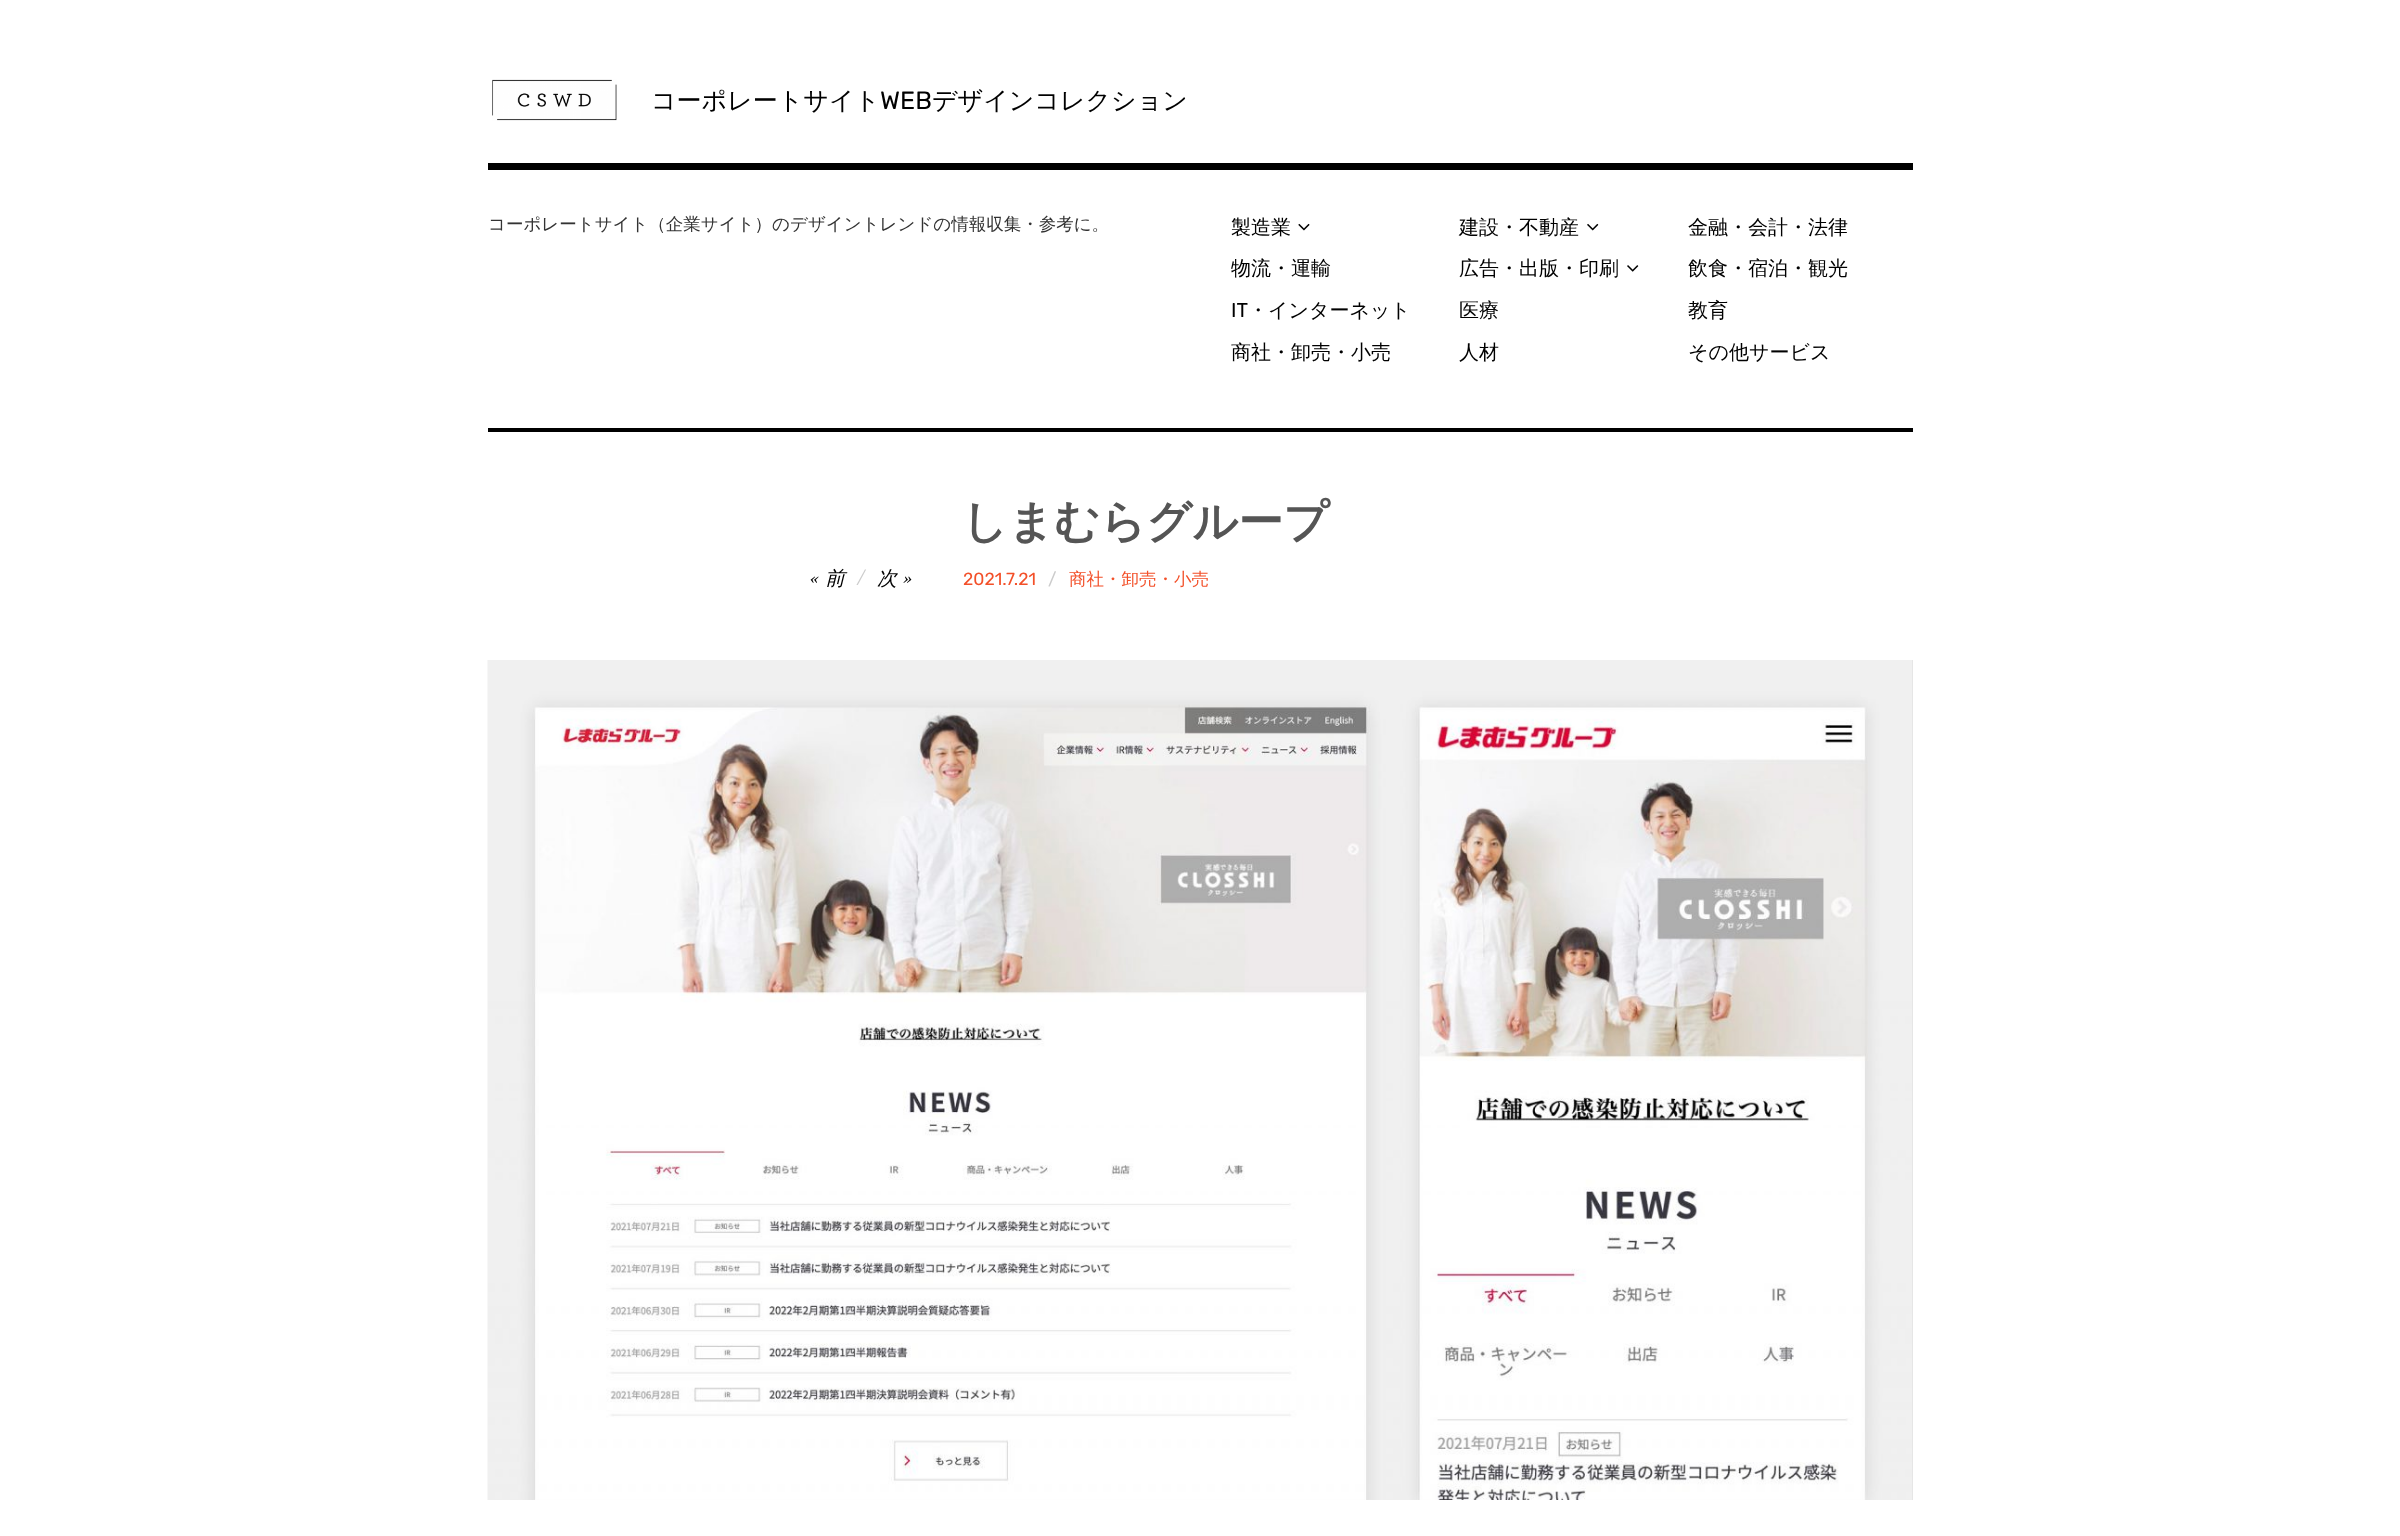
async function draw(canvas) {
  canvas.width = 2400;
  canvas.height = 1536;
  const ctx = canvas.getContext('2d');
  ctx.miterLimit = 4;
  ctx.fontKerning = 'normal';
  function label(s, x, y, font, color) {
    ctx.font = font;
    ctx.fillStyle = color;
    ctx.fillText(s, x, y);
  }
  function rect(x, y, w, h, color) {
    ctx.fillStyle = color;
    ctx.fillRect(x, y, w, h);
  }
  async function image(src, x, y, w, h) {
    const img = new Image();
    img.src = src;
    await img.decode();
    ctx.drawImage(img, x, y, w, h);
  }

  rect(0, 0, 2400, 1536, '#fff');
  rect(488, 163, 1425, 7, '#000');
  await image('assets/img1.png', 492, 79, 125, 42);
  label('コーポレートサイト', 651, 109, '500 25px WenQuanYi Zen Hei', '#000');
  label('WEB', 880, 109, '25px Rubik', '#000');
  label('デザインコレクション', 932, 109, '500 25px WenQuanYi Zen Hei', '#000');
  label('コーポレートサイト（企業サイト）のデザイントレンドの情報収集・参考に。', 488, 230, '500 17.5px WenQuanYi Zen Hei', '#333');
  label('製造業', 1231, 234, '500 20px WenQuanYi Zen Hei', '#000');
  await image('assets/img2.png', 1298, 223, 12, 8);
  label('物流・運輸', 1231, 275, '500 20px WenQuanYi Zen Hei', '#000');
  label('IT', 1231, 317, '20px Rubik', '#000');
  label('・インターネット', 1248, 317, '500 20px WenQuanYi Zen Hei', '#000');
  label('商社・卸売・小売', 1231, 359, '500 20px WenQuanYi Zen Hei', '#000');
  label('建設・不動産', 1459, 234, '500 20px WenQuanYi Zen Hei', '#000');
  await image('assets/img3.png', 1587, 223, 12, 8);
  label('広告・出版・印刷', 1459, 275, '500 20px WenQuanYi Zen Hei', '#000');
  await image('assets/img4.png', 1627, 265, 12, 7);
  label('医療', 1459, 317, '500 20px WenQuanYi Zen Hei', '#000');
  label('人材', 1459, 359, '500 20px WenQuanYi Zen Hei', '#000');
  label('金融・会計・法律', 1688, 234, '500 20px WenQuanYi Zen Hei', '#000');
  label('飲食・宿泊・観光', 1688, 275, '500 20px WenQuanYi Zen Hei', '#000');
  label('教育', 1688, 317, '500 20px WenQuanYi Zen Hei', '#000');
  label('その他サービス', 1688, 359, '500 20px WenQuanYi Zen Hei', '#000');
  rect(488, 428, 1425, 4, '#000');
  label('しまむらグループ', 962, 537, 'bold 45px WenQuanYi Zen Hei', '#555');
  label('«', 810, 585, 'italic 20px Libre Baskerville', '#000');
  label('前', 825, 585, 'italic 500 20px WenQuanYi Zen Hei', '#000');
  label('/', 857, 585, 'italic 20px Libre Baskerville', '#ccc');
  label('次', 877, 585, 'italic 500 20px WenQuanYi Zen Hei', '#000');
  label('»', 903, 585, 'italic 20px Libre Baskerville', '#000');
  label('2021.7.21', 963, 585, '17.5px Rubik', '#f35029');
  label('/', 1048, 585, '17.5px Rubik', '#ccc');
  label('商社・卸売・小売', 1069, 585, '500 17.5px WenQuanYi Zen Hei', '#f35029');
  ctx.strokeStyle = '#ddd';
  ctx.strokeRect(488.5, 660.5, 1424, 839);
  await image('assets/img5.png', 487, 660, 1426, 840);
}

draw(document.querySelector('canvas'));
